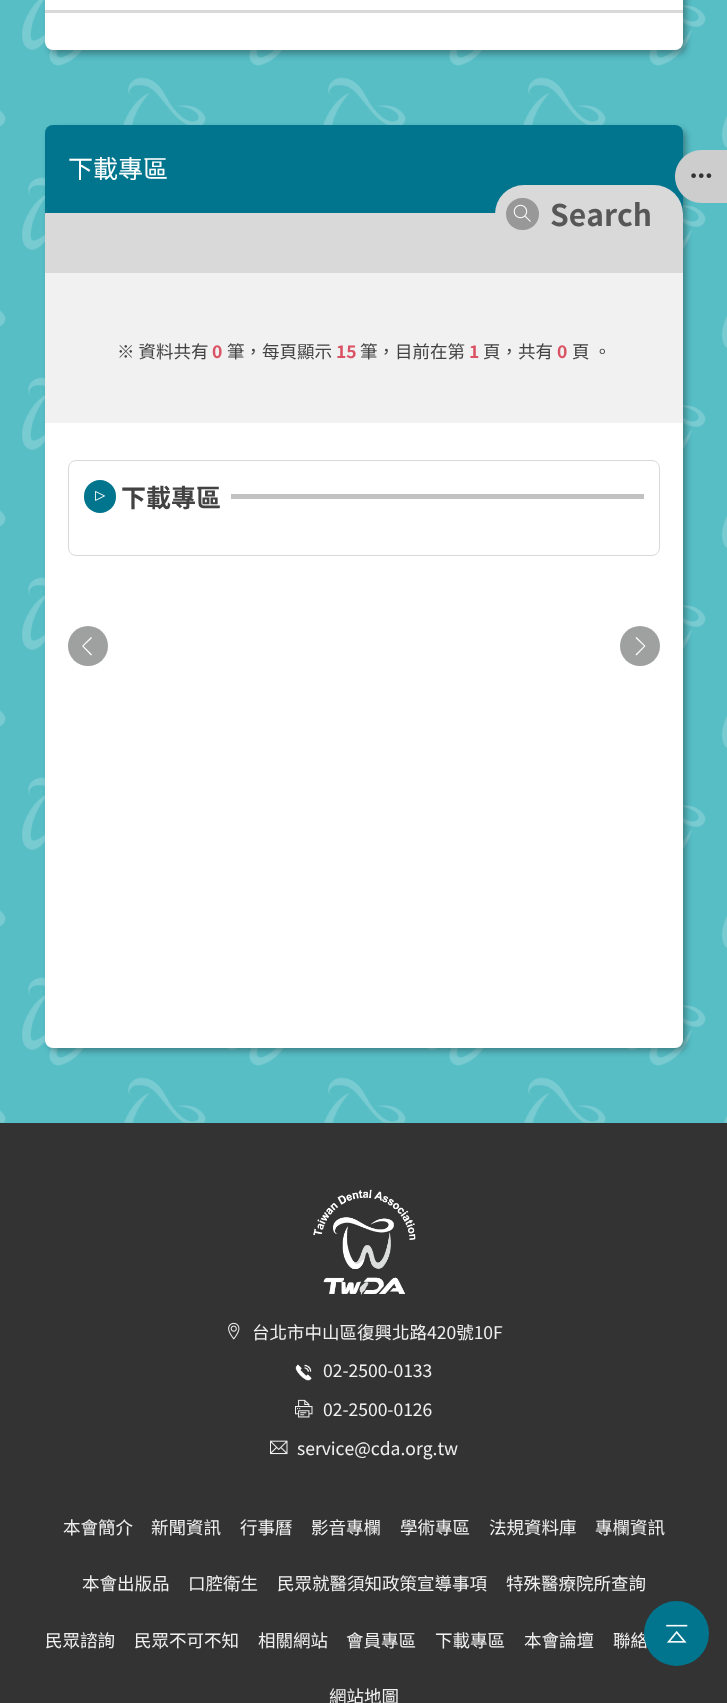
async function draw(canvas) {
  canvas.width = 727;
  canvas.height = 1703;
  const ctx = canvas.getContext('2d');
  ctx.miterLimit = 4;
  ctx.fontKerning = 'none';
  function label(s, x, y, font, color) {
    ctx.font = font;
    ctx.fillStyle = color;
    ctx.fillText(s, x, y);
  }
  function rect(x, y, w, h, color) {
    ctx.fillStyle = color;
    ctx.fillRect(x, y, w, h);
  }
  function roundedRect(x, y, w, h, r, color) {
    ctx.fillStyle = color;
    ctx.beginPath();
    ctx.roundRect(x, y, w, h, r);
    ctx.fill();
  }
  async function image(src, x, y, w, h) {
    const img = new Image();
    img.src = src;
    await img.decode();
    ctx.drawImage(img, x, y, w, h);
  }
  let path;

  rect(0, 0, 727, 1703, '#57bec6');
  await image('assets/img1.png', 0, 0, 727, 1123);
  ctx.fillStyle = '#00000054';
  ctx.filter = 'blur(3px)';
  ctx.beginPath();
  ctx.roundRect(49, -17, 637, 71, 8);
  ctx.fill();
  ctx.filter = 'none';
  roundedRect(45, -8, 638, 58, 8, '#fff');
  rect(45, 10, 638, 3, '#d9d9d9');
  ctx.fillStyle = '#00000054';
  ctx.filter = 'blur(3px)';
  ctx.beginPath();
  ctx.roundRect(49, 129, 637, 922, 8);
  ctx.fill();
  ctx.filter = 'none';
  ctx.fillStyle = '#00758d';
  ctx.beginPath();
  ctx.roundRect(45, 125, 638, 88, [8, 8, 0, 0]);
  ctx.fill();
  label('下載專區', 68, 178, '25px Noto Sans TC', '#fff');
  rect(45, 213, 638, 60, '#d9d9d9');
  roundedRect(495, 185, 188, 58, 29, '#d9d9d9');
  roundedRect(506, 198, 33, 32, 16, '#989898');
  await image('assets/img2.png', 513, 204, 18, 18);
  label('Search', 550, 226, 'bold 30px Noto Sans TC', '#575757');
  rect(45, 273, 638, 150, '#f1f1f1');
  label('※ 資料共有', 117, 358, '17.5px Noto Sans TC', '#424242');
  label('0', 212, 358, 'bold 17.5px Noto Sans TC', '#da5365');
  label('筆，每頁顯示', 227, 358, '17.5px Noto Sans TC', '#424242');
  label('15', 336, 358, 'bold 17.5px Noto Sans TC', '#da5365');
  label('筆，目前在第', 360, 358, '17.5px Noto Sans TC', '#424242');
  label('1', 469, 358, 'bold 17.5px Noto Sans TC', '#da5365');
  label('頁，共有', 483, 358, '17.5px Noto Sans TC', '#424242');
  label('0', 557, 358, 'bold 17.5px Noto Sans TC', '#da5365');
  label('頁 。', 572, 358, '17.5px Noto Sans TC', '#424242');
  ctx.fillStyle = '#fff';
  ctx.beginPath();
  ctx.roundRect(45, 423, 638, 625, [0, 0, 8, 8]);
  ctx.fill();
  ctx.beginPath();
  ctx.roundRect(68.5, 460.5, 591, 95, 7.5);
  ctx.strokeStyle = '#d9d9d9';
  ctx.stroke();
  roundedRect(84, 480, 32, 33, 16, '#00758d');
  await image('assets/img3.png', 95, 490, 11, 11);
  label('下載專區', 121, 507, 'bold 25px Noto Sans TC', '#424242');
  rect(231, 494, 413, 5, '#c2c2c2');
  ctx.fillStyle = '#9fa0a0';
  ctx.beginPath();
  ctx.arc(88, 646, 20, 0, 2 * Math.PI);
  ctx.fill();
  ctx.fillStyle = '#fff';
  path = new Path2D('M83.5 646L92 654.5L91 655.5L82 646L91 637L92 638Z');
  ctx.fill(path);
  ctx.fillStyle = '#9fa0a0';
  ctx.beginPath();
  ctx.arc(640, 646, 20, 0, 2 * Math.PI);
  ctx.fill();
  ctx.fillStyle = '#fff';
  path = new Path2D('M645.5 646L636.5 655.5L635.5 654.5L644 646L635.5 638L636.5 637Z');
  ctx.fill(path);
  ctx.fillStyle = '#cdcdcd';
  path = new Path2D('M701.5 150H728V203H701.5C687 203 675 191 675 176.5C675 162 687 150 701.5 150Z');
  ctx.fill(path);
  await image('assets/img4.png', 691, 173, 21, 5);
  rect(0, 1123, 727, 580, '#333');
  await image('assets/img5.png', 313, 1189, 103, 106);
  await image('assets/img6.png', 228, 1322, 12, 18);
  label('台北市中山區復興北路420號10F', 252, 1339, '17.5px Noto Sans TC', '#f0f0f0');
  await image('assets/img7.png', 295, 1364, 17, 17);
  label('02-2500-0133', 323, 1377, '17.5px Noto Sans TC', '#f0f0f0');
  await image('assets/img8.png', 295, 1399, 18, 19);
  label('02-2500-0126', 323, 1416, '17.5px Noto Sans TC', '#f0f0f0');
  await image('assets/img9.png', 270, 1440, 18, 15);
  label('service@cda.org.tw', 297, 1455, '17.5px Noto Sans TC', '#f0f0f0');
  label('本會簡介', 63, 1534, '17.5px Noto Sans TC', '#f0f0f0');
  label('新聞資訊', 151, 1534, '17.5px Noto Sans TC', '#f0f0f0');
  label('行事曆', 240, 1534, '17.5px Noto Sans TC', '#f0f0f0');
  label('影音專欄', 311, 1534, '17.5px Noto Sans TC', '#f0f0f0');
  label('學術專區', 400, 1534, '17.5px Noto Sans TC', '#f0f0f0');
  label('法規資料庫', 489, 1534, '17.5px Noto Sans TC', '#f0f0f0');
  label('專欄資訊', 595, 1534, '17.5px Noto Sans TC', '#f0f0f0');
  label('本會出版品', 82, 1590, '17.5px Noto Sans TC', '#f0f0f0');
  label('口腔衛生', 188, 1590, '17.5px Noto Sans TC', '#f0f0f0');
  label('民眾就醫須知政策宣導事項', 277, 1590, '17.5px Noto Sans TC', '#f0f0f0');
  label('特殊醫療院所查詢', 506, 1590, '17.5px Noto Sans TC', '#f0f0f0');
  label('民眾諮詢', 45, 1647, '17.5px Noto Sans TC', '#f0f0f0');
  label('民眾不可不知', 134, 1647, '17.5px Noto Sans TC', '#f0f0f0');
  label('相關網站', 258, 1647, '17.5px Noto Sans TC', '#f0f0f0');
  label('會員專區', 346, 1647, '17.5px Noto Sans TC', '#f0f0f0');
  label('下載專區', 435, 1647, '17.5px Noto Sans TC', '#f0f0f0');
  label('本會論壇', 524, 1647, '17.5px Noto Sans TC', '#f0f0f0');
  label('聯絡', 613, 1647, '17.5px Noto Sans TC', '#f0f0f0');
  label('網站地圖', 329, 1703, '17.5px Noto Sans TC', '#f0f0f0');
  ctx.fillStyle = '#00758d';
  ctx.beginPath();
  ctx.arc(676.5, 1633.5, 32.5, 0, 2 * Math.PI);
  ctx.fill();
  await image('assets/img10.png', 666, 1624, 22, 19);
}

draw(document.querySelector('canvas'));
